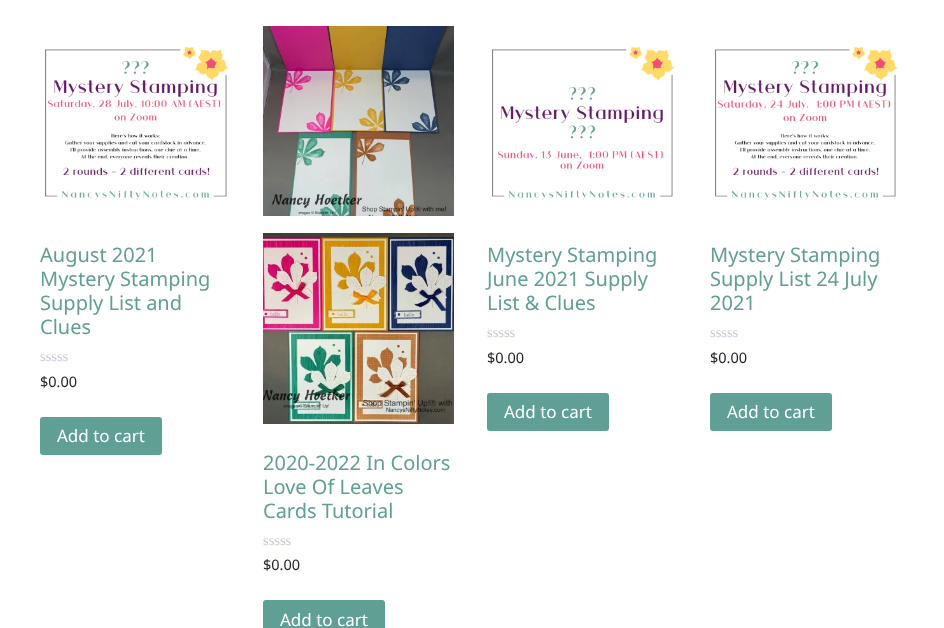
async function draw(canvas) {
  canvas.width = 944;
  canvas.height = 628;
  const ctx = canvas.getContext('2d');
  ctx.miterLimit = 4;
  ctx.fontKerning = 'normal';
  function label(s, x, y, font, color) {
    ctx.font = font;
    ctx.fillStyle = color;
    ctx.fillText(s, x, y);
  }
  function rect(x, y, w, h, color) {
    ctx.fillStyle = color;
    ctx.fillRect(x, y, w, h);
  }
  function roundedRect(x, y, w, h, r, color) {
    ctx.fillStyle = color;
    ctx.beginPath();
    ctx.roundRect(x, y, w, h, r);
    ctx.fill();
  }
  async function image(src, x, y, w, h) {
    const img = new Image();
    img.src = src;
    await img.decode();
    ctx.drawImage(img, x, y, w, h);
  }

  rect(0, 0, 944, 628, '#fff');
  await image('assets/img1.png', 45, 46, 184, 154);
  label('August 2021', 40, 262, '20px Noto Sans', '#609f94');
  label('Mystery Stamping', 40, 286, '20px Noto Sans', '#609f94');
  label('Supply List and', 40, 310, '20px Noto Sans', '#609f94');
  label('Clues', 40, 334, '20px Noto Sans', '#609f94');
  label('sssss', 40, 361, '14.5px Liberation Serif', '#cfc8d8');
  label('$0.00', 40, 387, '14.5px Noto Sans', '#222');
  roundedRect(40, 417, 122, 38, 3, '#609f94');
  label('Add to cart', 57, 442, '17px Noto Sans', '#fff');
  await image('assets/img2.png', 492, 46, 183, 154);
  label('Mystery Stamping', 487, 262, '20px Noto Sans', '#609f94');
  label('June 2021 Supply', 487, 286, '20px Noto Sans', '#609f94');
  label('List & Clues', 487, 310, '20px Noto Sans', '#609f94');
  label('sssss', 487, 337, '14.5px Liberation Serif', '#cfc8d8');
  label('$0.00', 487, 363, '14.5px Noto Sans', '#222');
  roundedRect(487, 393, 122, 38, 3, '#609f94');
  label('Add to cart', 504, 418, '17px Noto Sans', '#fff');
  await image('assets/img3.png', 715, 46, 183, 154);
  label('Mystery Stamping', 710, 262, '20px Noto Sans', '#609f94');
  label('Supply List 24 July', 710, 286, '20px Noto Sans', '#609f94');
  label('2021', 710, 310, '20px Noto Sans', '#609f94');
  label('sssss', 710, 337, '14.5px Liberation Serif', '#cfc8d8');
  label('$0.00', 710, 363, '14.5px Noto Sans', '#222');
  roundedRect(710, 393, 122, 38, 3, '#609f94');
  label('Add to cart', 727, 418, '17px Noto Sans', '#fff');
  await image('assets/img4.png', 263, 26, 191, 190);
  await image('assets/img5.png', 263, 233, 191, 191);
  label('2020-2022 In Colors', 263, 470, '20px Noto Sans', '#609f94');
  label('Love Of Leaves', 263, 494, '20px Noto Sans', '#609f94');
  label('Cards Tutorial', 263, 518, '20px Noto Sans', '#609f94');
  label('sssss', 263, 545, '14.5px Liberation Serif', '#cfc8d8');
  label('$0.00', 263, 570, '14.5px Noto Sans', '#222');
  roundedRect(263, 600, 122, 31, 3, '#609f94');
  label('Add to cart', 280, 626, '17px Noto Sans', '#fff');
}

draw(document.querySelector('canvas'));
